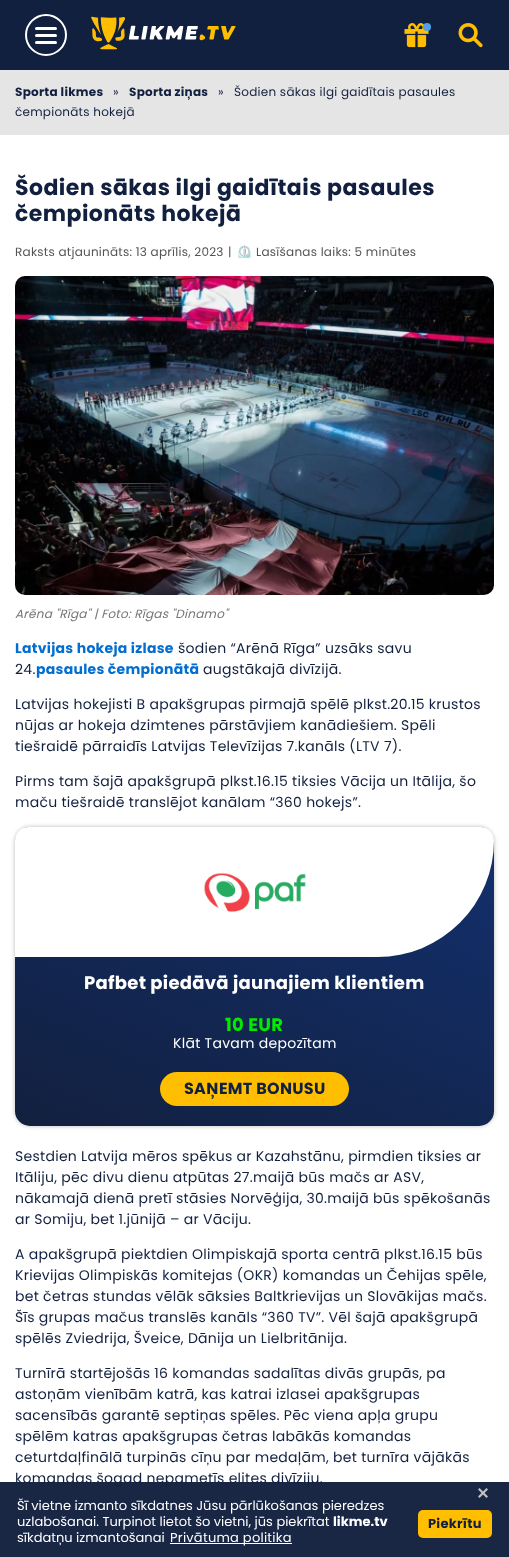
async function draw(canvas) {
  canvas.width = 509;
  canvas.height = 1557;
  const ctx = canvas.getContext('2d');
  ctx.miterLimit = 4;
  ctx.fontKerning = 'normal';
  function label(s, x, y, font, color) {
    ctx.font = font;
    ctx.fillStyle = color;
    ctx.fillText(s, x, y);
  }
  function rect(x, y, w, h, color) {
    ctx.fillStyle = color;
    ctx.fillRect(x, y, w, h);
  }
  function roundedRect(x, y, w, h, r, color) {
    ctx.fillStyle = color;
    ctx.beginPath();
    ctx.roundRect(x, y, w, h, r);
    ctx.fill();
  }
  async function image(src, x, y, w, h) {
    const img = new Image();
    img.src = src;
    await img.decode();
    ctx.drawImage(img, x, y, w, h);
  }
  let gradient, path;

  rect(0, 0, 509, 1557, '#e5e5e5');
  rect(0, 0, 509, 70, '#12203f');
  ctx.beginPath();
  ctx.arc(46, 35, 20, 0, 2 * Math.PI);
  ctx.strokeStyle = '#fff';
  ctx.lineWidth = 2;
  ctx.stroke();
  roundedRect(35, 27, 22, 3, 1.5, '#fff');
  roundedRect(35, 34, 22, 3, 1.5, '#fff');
  roundedRect(35, 41, 22, 3, 1.5, '#fff');
  await image('assets/img1.png', 91, 16, 145, 34);
  await image('assets/img2.png', 404, 23, 25, 25);
  ctx.fillStyle = '#4f9fe9';
  ctx.beginPath();
  ctx.arc(427, 27, 4, 0, 2 * Math.PI);
  ctx.fill();
  await image('assets/img3.png', 458, 23, 25, 25);
  ctx.letterSpacing = '0.25px';
  label('Sporta likmes', 15, 96, 'bold 12px Poppins', '#12203f');
  label('»', 113, 96, '12px Poppins', '#12203f');
  label('Sporta ziņas', 129, 96, 'bold 12px Poppins', '#12203f');
  label('»', 218, 96, '12px Poppins', '#12203f');
  label('Šodien sākas ilgi gaidītais pasaules', 234, 96, '12px Poppins', '#12203f');
  label('čempionāts hokejā', 15, 116, '12px Poppins', '#12203f');
  rect(0, 135, 509, 1422, '#fff');
  ctx.letterSpacing = '0.45px';
  label('Šodien sākas ilgi gaidītais pasaules', 15, 195, 'bold 22px Poppins', '#12203f');
  label('čempionāts hokejā', 15, 221, 'bold 22px Poppins', '#12203f');
  ctx.letterSpacing = '0.25px';
  label('Raksts atjaunināts: 13 aprīlis, 2023', 15, 256, '12px Poppins', '#545454');
  label('|', 228, 256, '12px Poppins', '#545454');
  label('⏲️', 237, 256, '12px Noto Color Emoji', '#545454');
  label('Lasīšanas laiks: 5 minūtes', 256, 256, '12px Poppins', '#545454');
  await image('assets/img4.png', 15, 276, 479, 319);
  label('Arēna "Rīga" | Foto: Rīgas "Dinamo"', 15, 618, 'italic 12px Poppins', '#757575');
  ctx.letterSpacing = '0.28px';
  label('Latvijas hokeja izlase', 15, 653, 'bold 14px Poppins', '#036ed1');
  label('šodien “Arēnā Rīga” uzsāks savu', 178, 653, '14px Poppins', '#12203f');
  label('24.', 15, 674, '14px Poppins', '#12203f');
  label('pasaules čempionātā', 36, 674, 'bold 14px Poppins', '#036ed1');
  label('augstākajā divīzijā.', 203, 674, '14px Poppins', '#12203f');
  label('Latvijas hokejisti B apakšgrupas pirmajā spēlē plkst.20.15 krustos', 15, 709, '14px Poppins', '#12203f');
  label('nūjas ar hokeja dzimtenes pārstāvjiem kanādiešiem. Spēli', 15, 730, '14px Poppins', '#12203f');
  label('tiešraidē pārraidīs Latvijas Televīzijas 7.kanāls (LTV 7).', 15, 751, '14px Poppins', '#12203f');
  label('Pirms tam šajā apakšgrupā plkst.16.15 tiksies Vācija un Itālija, šo', 15, 786, '14px Poppins', '#12203f');
  label('maču tiešraidē translējot kanālam “360 hokejs”.', 15, 807, '14px Poppins', '#12203f');
  ctx.fillStyle = '#b9b9b9';
  ctx.filter = 'blur(2px)';
  ctx.beginPath();
  ctx.roundRect(15, 827, 479, 299, 15);
  ctx.fill();
  ctx.filter = 'none';
  gradient = ctx.createLinearGradient(159, 1190, 350, 763);
  gradient.addColorStop(0, '#12203f');
  gradient.addColorStop(1, '#13306e');
  ctx.fillStyle = gradient;
  ctx.beginPath();
  ctx.roundRect(15, 827, 479, 299, 15);
  ctx.fill();
  ctx.fillStyle = '#fff';
  ctx.beginPath();
  ctx.roundRect(15, 827, 479, 130, [15, 15, 130, 0]);
  ctx.fill();
  await image('assets/img5.png', 204, 872, 102, 40);
  label('Pafbet piedāvā jaunajiem klientiem', 84, 989, 'bold 18px Poppins', '#fff');
  label('10 EUR', 225, 1031, 'bold 18px Poppins', '#04e900');
  label('Klāt Tavam depozītam', 173, 1048, '14px Poppins', '#fff');
  roundedRect(160, 1072, 189, 34, 17, '#ffbf00');
  label('SAŅEMT BONUSU', 184, 1094, 'bold 16px Poppins', '#12203f');
  label('Sestdien Latvija mēros spēkus ar Kazahstānu, pirmdien tiksies ar', 15, 1161, '14px Poppins', '#12203f');
  label('Itāliju, pēc divu dienu atpūtas 27.maijā būs mačs ar ASV,', 15, 1182, '14px Poppins', '#12203f');
  label('nākamajā dienā pretī stāsies Norvēģija, 30.maijā būs spēkošanās', 15, 1203, '14px Poppins', '#12203f');
  label('ar Somiju, bet 1.jūnijā – ar Vāciju.', 15, 1224, '14px Poppins', '#12203f');
  label('A apakšgrupā piektdien Olimpiskajā sporta centrā plkst.16.15 būs', 15, 1259, '14px Poppins', '#12203f');
  label('Krievijas Olimpiskās komitejas (OKR) komandas un Čehijas spēle,', 15, 1280, '14px Poppins', '#12203f');
  label('bet četras stundas vēlāk sāksies Baltkrievijas un Slovākijas mačs.', 15, 1301, '14px Poppins', '#12203f');
  label('Šīs grupas mačus translēs kanāls “360 TV”. Vēl šajā apakšgrupā', 15, 1322, '14px Poppins', '#12203f');
  label('spēlēs Zviedrija, Šveice, Dānija un Lielbritānija.', 15, 1343, '14px Poppins', '#12203f');
  label('Turnīrā startējošās 16 komandas sadalītas divās grupās, pa', 15, 1378, '14px Poppins', '#12203f');
  label('astoņām vienībām katrā, kas katrai izlasei apakšgrupas', 15, 1399, '14px Poppins', '#12203f');
  label('sacensībās garantē septiņas spēles. Pēc viena apļa grupu', 15, 1420, '14px Poppins', '#12203f');
  label('spēlēm katras apakšgrupas četras labākās komandas', 15, 1441, '14px Poppins', '#12203f');
  label('ceturtdaļfinālā turpinās cīņu par medaļām, bet turnīra vājākās', 15, 1462, '14px Poppins', '#12203f');
  label('komandas šogad nepametīs elites divīziju.', 15, 1483, '14px Poppins', '#12203f');
  rect(0, 1482, 509, 75, '#12203ff7');
  ctx.fillStyle = '#c1c1c1';
  path = new Path2D('M486.5 1488L488 1489.5L479.5 1498L478 1496.5Z');
  ctx.fill(path);
  path = new Path2D('M478 1489.5L479.5 1488L488 1496.5L486.5 1498Z');
  ctx.fill(path);
  ctx.letterSpacing = '0px';
  label('Šī vietne izmanto sīkdatnes Jūsu pārlūkošanas pieredzes', 17, 1510, '13px Poppins', '#fff');
  label('uzlabošanai. Turpinot lietot šo vietni, jūs piekrītat', 17, 1526, '13px Poppins', '#fff');
  label('likme.tv', 333, 1526, 'bold 13px Poppins', '#fff');
  label('sīkdatņu izmantošanai', 17, 1542, '13px Poppins', '#fff');
  rect(170, 1543, 122, 1, '#fff');
  ctx.letterSpacing = '0.25px';
  label('Privātuma politika', 170, 1542, '13px Poppins', '#fff');
  roundedRect(418, 1510, 74, 28, 5, '#ffbf00');
  label('Piekrītu', 428, 1528, 'bold 13px Poppins', '#12203f');
}

draw(document.querySelector('canvas'));
